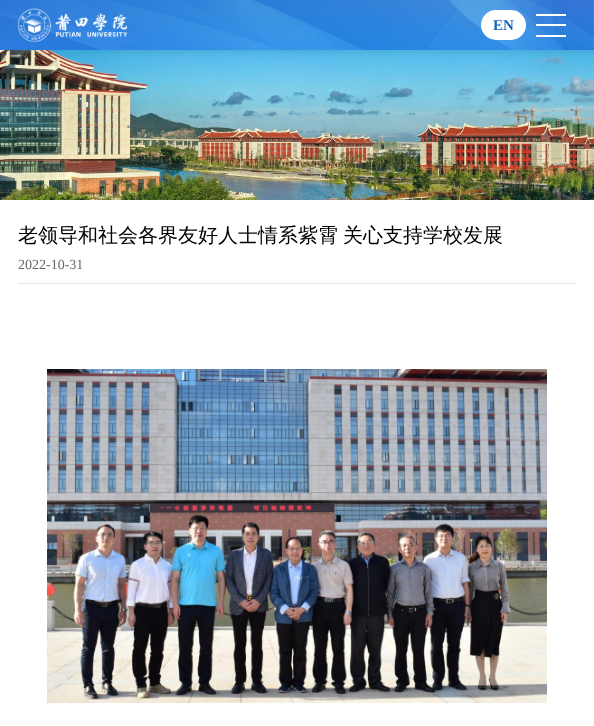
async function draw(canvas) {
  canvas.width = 594;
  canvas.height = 726;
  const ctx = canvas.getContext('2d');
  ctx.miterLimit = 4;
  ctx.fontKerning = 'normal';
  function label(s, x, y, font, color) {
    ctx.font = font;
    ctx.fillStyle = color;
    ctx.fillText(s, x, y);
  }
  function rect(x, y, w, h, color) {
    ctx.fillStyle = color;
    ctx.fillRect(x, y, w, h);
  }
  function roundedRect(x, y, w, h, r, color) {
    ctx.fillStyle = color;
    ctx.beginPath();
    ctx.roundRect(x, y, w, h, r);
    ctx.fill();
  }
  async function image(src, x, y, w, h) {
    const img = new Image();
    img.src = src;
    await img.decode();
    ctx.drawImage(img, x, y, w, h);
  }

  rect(0, 0, 594, 726, '#fff');
  await image('assets/img3.png', 0, 50, 594, 150);
  ctx.fillStyle = '#0000001a';
  ctx.filter = 'blur(5px)';
  ctx.beginPath();
  ctx.rect(0, 0, 594, 50);
  ctx.fill();
  ctx.filter = 'none';
  await image('assets/img1.png', 0, 0, 594, 50);
  await image('assets/img2.png', 17, 8, 110, 34);
  roundedRect(481, 10, 45, 30, 15, '#fff');
  label('EN', 493, 30, 'bold 15px Liberation Serif', '#0f66bb');
  rect(536, 14, 30, 2, '#fff');
  rect(536, 24, 30, 2, '#fff');
  rect(536, 35, 30, 2, '#fff');
  ctx.wordSpacing = '-1px';
  label('老领导和社会各界友好人士情系紫霄 关心支持学校发展', 18, 242, '500 20px WenQuanYi Zen Hei', '#000');
  rect(18, 283, 558, 1, '#e1e5e8');
  ctx.wordSpacing = '0px';
  label('2022-10-31', 18, 269, '14px Liberation Serif', '#666');
  await image('assets/img4.png', 47, 369, 500, 334);
}

draw(document.querySelector('canvas'));
